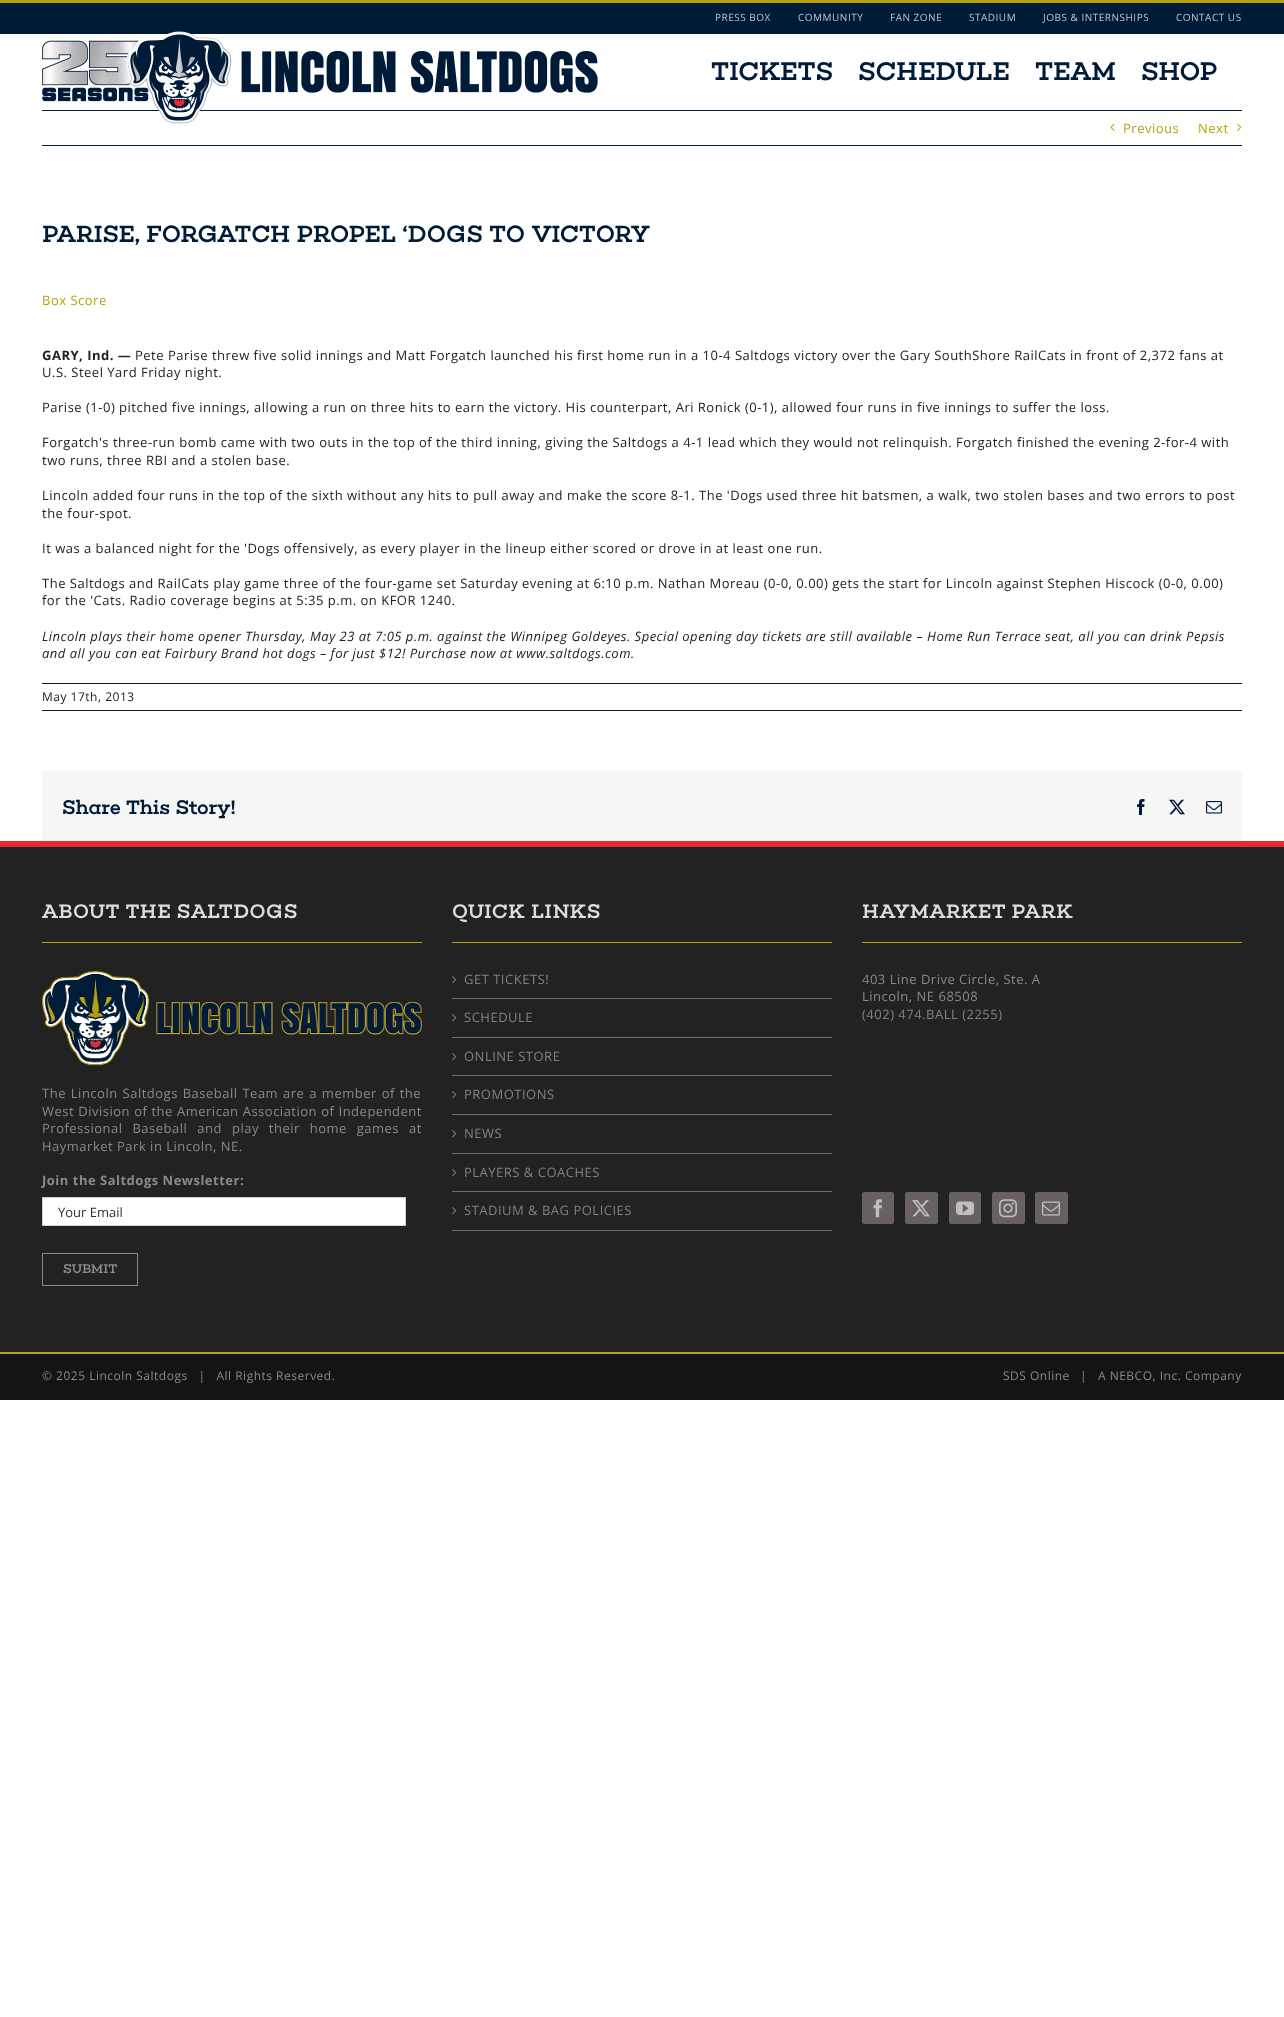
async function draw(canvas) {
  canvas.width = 1284;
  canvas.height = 2017;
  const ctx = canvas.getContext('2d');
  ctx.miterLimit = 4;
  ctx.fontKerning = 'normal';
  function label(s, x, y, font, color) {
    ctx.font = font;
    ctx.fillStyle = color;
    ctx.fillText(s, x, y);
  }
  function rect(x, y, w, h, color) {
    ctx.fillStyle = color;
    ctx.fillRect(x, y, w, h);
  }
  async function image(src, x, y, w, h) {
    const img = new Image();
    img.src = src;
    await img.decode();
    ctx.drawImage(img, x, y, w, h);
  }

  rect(0, 0, 1284, 2017, '#fff');
  rect(0, 3, 1284, 31, '#001b38');
  rect(0, 0, 1284, 3, '#b7a10d');
  ctx.letterSpacing = '0.5px';
  label('PRESS BOX', 715, 21, '10px Open Sans', '#c4c4c4');
  label('COMMUNITY', 798, 21, '10px Open Sans', '#c4c4c4');
  label('FAN ZONE', 890, 21, '10px Open Sans', '#c4c4c4');
  label('STADIUM', 969, 21, '10px Open Sans', '#c4c4c4');
  label('JOBS & INTERNSHIPS', 1043, 21, '10px Open Sans', '#c4c4c4');
  label('CONTACT US', 1176, 21, '10px Open Sans', '#c4c4c4');
  rect(42, 110, 1200, 1, '#001b38');
  await image('assets/img1.png', 42, 31, 556, 93);
  ctx.letterSpacing = '0px';
  label('TICKETS', 711, 80, '500 26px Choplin', '#001b38');
  label('SCHEDULE', 858, 80, '500 26px Choplin', '#001b38');
  label('TEAM', 1035, 80, '500 26px Choplin', '#001b38');
  label('SHOP', 1141, 80, '500 26px Choplin', '#001b38');
  rect(42, 145, 1200, 1, '#001b38');
  await image('assets/img2.png', 1110, 123, 5, 8);
  ctx.letterSpacing = '0.5px';
  label('Previous', 1123, 133, '13px Open Sans', '#b7a10d');
  label('Next', 1198, 133, '13px Open Sans', '#b7a10d');
  await image('assets/img3.png', 1237, 123, 5, 8);
  ctx.letterSpacing = '0px';
  label('PARISE, FORGATCH PROPEL ‘DOGS TO VICTORY', 42, 242, '500 24px Choplin', '#001b38');
  ctx.letterSpacing = '0.5px';
  label('Box Score', 42, 305, '13px Open Sans', '#b7a10d');
  label('GARY, Ind. —', 42, 360, 'bold 13px Open Sans', '#222');
  label('Pete Parise threw five solid innings and Matt Forgatch launched his first home run in a 10-4 Saltdogs victory over the Gary SouthShore RailCats in front of 2,372 fans at', 135, 360, '13px Open Sans', '#222');
  label('U.S. Steel Yard Friday night.', 42, 377, '13px Open Sans', '#222');
  label('Parise (1-0) pitched five innings, allowing a run on three hits to earn the victory. His counterpart, Ari Ronick (0-1), allowed four runs in five innings to suffer the loss.', 42, 412, '13px Open Sans', '#222');
  label('Forgatch\'s three-run bomb came with two outs in the top of the third inning, giving the Saltdogs a 4-1 lead which they would not relinquish. Forgatch finished the evening 2-for-4 with', 42, 447, '13px Open Sans', '#222');
  label('two runs, three RBI and a stolen base.', 42, 465, '13px Open Sans', '#222');
  label('Lincoln added four runs in the top of the sixth without any hits to pull away and make the score 8-1. The \'Dogs used three hit batsmen, a walk, two stolen bases and two errors to post', 42, 500, '13px Open Sans', '#222');
  label('the four-spot.', 42, 518, '13px Open Sans', '#222');
  label('It was a balanced night for the \'Dogs offensively, as every player in the lineup either scored or drove in at least one run.', 42, 553, '13px Open Sans', '#222');
  label('The Saltdogs and RailCats play game three of the four-game set Saturday evening at 6:10 p.m. Nathan Moreau (0-0, 0.00) gets the start for Lincoln against Stephen Hiscock (0-0, 0.00)', 42, 588, '13px Open Sans', '#222');
  label('for the \'Cats. Radio coverage begins at 5:35 p.m. on KFOR 1240.', 42, 605, '13px Open Sans', '#222');
  label('Lincoln plays their home opener Thursday, May 23 at 7:05 p.m. against the Winnipeg Goldeyes. Special opening day tickets are still available – Home Run Terrace seat, all you can drink Pepsis', 42, 641, 'italic 13px Open Sans', '#222');
  label('and all you can eat Fairbury Brand hot dogs – for just $12! Purchase now at www.saltdogs.com.', 42, 658, 'italic 13px Open Sans', '#222');
  rect(42, 683, 1200, 1, '#001b38');
  rect(42, 710, 1200, 1, '#001b38');
  label('May 17th, 2013', 42, 701, '12px Open Sans', '#222');
  rect(42, 771, 1200, 70, '#f6f6f6');
  ctx.letterSpacing = '0px';
  label('Share This Story!', 62, 814, '500 20px Choplin', '#001b38');
  await image('assets/img4.png', 1137, 799, 8, 16);
  await image('assets/img5.png', 1169, 799, 16, 16);
  await image('assets/img6.png', 1206, 801, 16, 13);
  rect(0, 847, 1284, 505, '#222');
  rect(0, 841, 1284, 6, '#e9292f');
  rect(42, 942, 380, 1, '#b7a10d');
  ctx.letterSpacing = '0.5px';
  label('ABOUT THE SALTDOGS', 42, 918, '500 20px Choplin', '#ddd');
  await image('assets/img7.png', 42, 970, 380, 96);
  ctx.wordSpacing = '1px';
  label('The Lincoln Saltdogs Baseball Team are a member of the', 42, 1098, '13px Open Sans', '#8c8989');
  ctx.wordSpacing = '0.25px';
  label('West Division of the American Association of Independent', 42, 1116, '13px Open Sans', '#8c8989');
  ctx.wordSpacing = '6px';
  label('Professional Baseball and', 42, 1133, '13px Open Sans', '#8c8989');
  label('play their home games at', 232, 1133, '13px Open Sans', '#8c8989');
  ctx.wordSpacing = '0px';
  label('Haymarket Park in Lincoln, NE.', 42, 1151, '13px Open Sans', '#8c8989');
  label('Join the Saltdogs Newsletter:', 42, 1185, 'bold 13px Open Sans', '#8c8989');
  ctx.fillStyle = '#fff';
  ctx.beginPath();
  ctx.rect(42.5, 1197.5, 363, 28);
  ctx.fill();
  ctx.strokeStyle = '#d2d2d2';
  ctx.stroke();
  ctx.letterSpacing = '0px';
  label('Your Email', 58, 1217, '13px Open Sans', '#332e2e');
  ctx.strokeStyle = '#8c8989';
  ctx.strokeRect(42.5, 1253.5, 95, 32);
  label('SUBMIT', 63, 1273, '500 13px Choplin', '#8c8989');
  rect(452, 942, 380, 1, '#b7a10d');
  ctx.letterSpacing = '0.5px';
  label('QUICK LINKS', 452, 918, '500 20px Choplin', '#ddd');
  rect(452, 998, 380, 1, '#726f6f');
  await image('assets/img8.png', 452, 976, 5, 8);
  label('GET TICKETS!', 464, 984, '13px Open Sans', '#828282');
  rect(452, 1037, 380, 1, '#726f6f');
  await image('assets/img8.png', 452, 1014, 5, 8);
  label('SCHEDULE', 464, 1022, '13px Open Sans', '#828282');
  rect(452, 1075, 380, 1, '#726f6f');
  await image('assets/img8.png', 452, 1053, 5, 8);
  label('ONLINE STORE', 464, 1061, '13px Open Sans', '#828282');
  rect(452, 1114, 380, 1, '#726f6f');
  await image('assets/img8.png', 452, 1091, 5, 8);
  label('PROMOTIONS', 464, 1099, '13px Open Sans', '#828282');
  rect(452, 1153, 380, 1, '#726f6f');
  await image('assets/img8.png', 452, 1130, 5, 8);
  label('NEWS', 464, 1138, '13px Open Sans', '#828282');
  rect(452, 1191, 380, 1, '#726f6f');
  await image('assets/img8.png', 452, 1169, 5, 8);
  label('PLAYERS & COACHES', 464, 1177, '13px Open Sans', '#828282');
  rect(452, 1230, 380, 1, '#726f6f');
  await image('assets/img8.png', 452, 1207, 5, 8);
  label('STADIUM & BAG POLICIES', 464, 1215, '13px Open Sans', '#828282');
  rect(862, 942, 380, 1, '#b7a10d');
  label('HAYMARKET PARK', 862, 918, '500 20px Choplin', '#ddd');
  label('403 Line Drive Circle, Ste. A', 862, 984, '13px Open Sans', '#8c8989');
  label('Lincoln, NE 68508', 862, 1001, '13px Open Sans', '#8c8989');
  label('(402) 474.BALL (2255)', 862, 1019, '13px Open Sans', '#828282');
  ctx.fillStyle = '#686161';
  ctx.beginPath();
  ctx.roundRect(862.5, 1192.5, 31, 31, 1.5);
  ctx.fill();
  ctx.strokeStyle = '#686161';
  ctx.stroke();
  await image('assets/img9.png', 873, 1199, 9, 19);
  ctx.beginPath();
  ctx.roundRect(905.5, 1192.5, 32, 31, 1.5);
  ctx.fill();
  ctx.stroke();
  await image('assets/img10.png', 912, 1200, 18, 17);
  ctx.beginPath();
  ctx.roundRect(949.5, 1192.5, 31, 31, 1.5);
  ctx.fill();
  ctx.stroke();
  await image('assets/img11.png', 956, 1201, 18, 14);
  ctx.beginPath();
  ctx.roundRect(992.5, 1192.5, 32, 31, 1.5);
  ctx.fill();
  ctx.stroke();
  await image('assets/img12.png', 999, 1199, 18, 19);
  ctx.beginPath();
  ctx.roundRect(1035.5, 1192.5, 32, 31, 1.5);
  ctx.fill();
  ctx.stroke();
  await image('assets/img13.png', 1042, 1201, 18, 15);
  rect(0, 1354, 1284, 46, '#141414');
  rect(0, 1352, 1284, 2, '#b7a10d');
  label('© 2025 Lincoln Saltdogs   |   All Rights Reserved.', 42, 1380, '12px Open Sans', '#8c8989');
  label('SDS Online', 1003, 1380, '12px Open Sans', '#8c8989');
  label('|   A NEBCO, Inc. Company', 1080, 1380, '12px Open Sans', '#8c8989');
}

draw(document.querySelector('canvas'));
